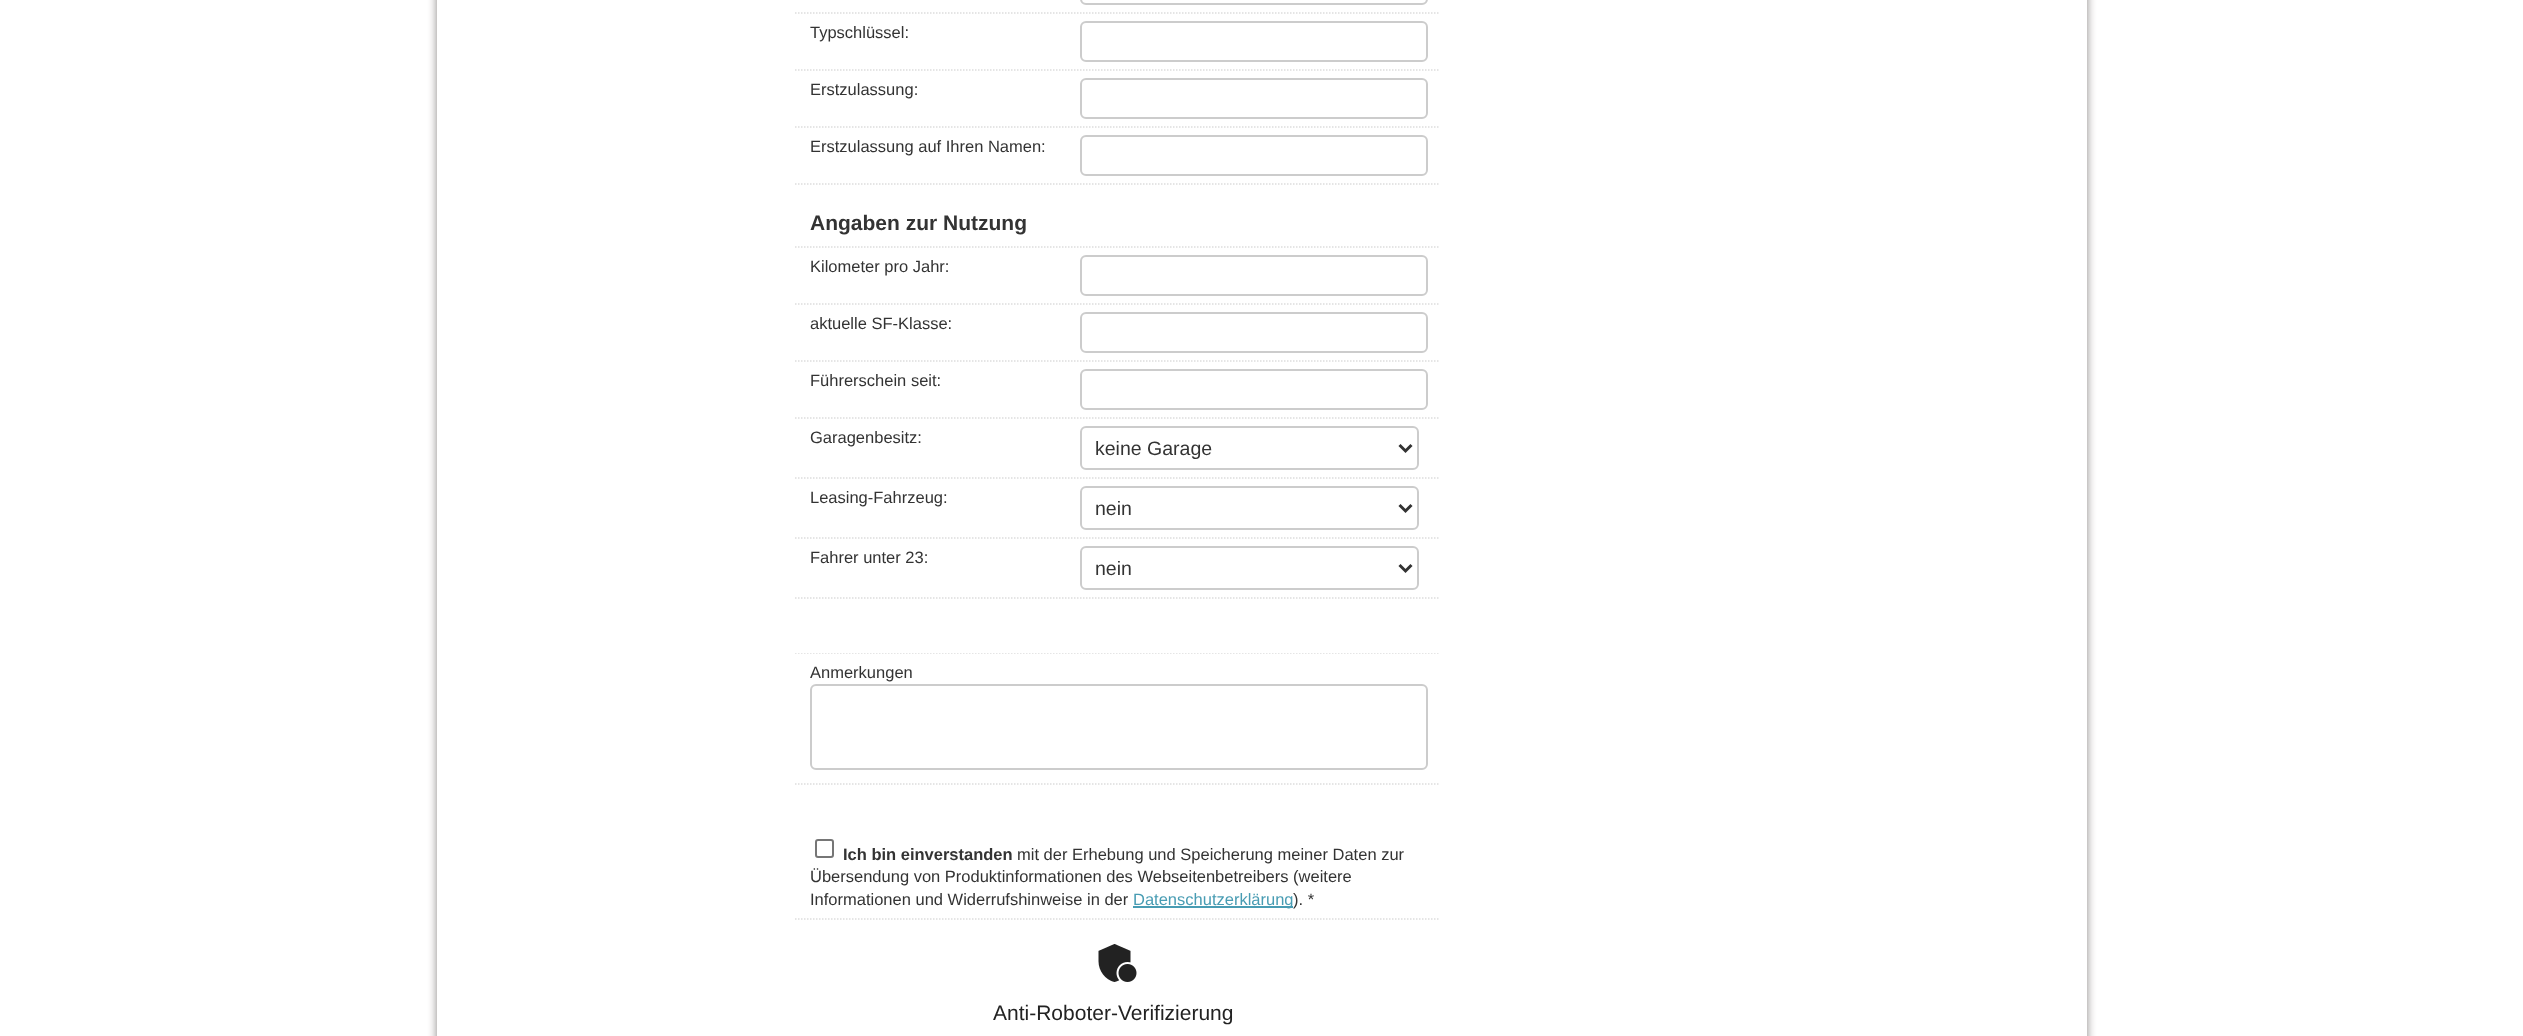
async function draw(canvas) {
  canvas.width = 2523;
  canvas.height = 1036;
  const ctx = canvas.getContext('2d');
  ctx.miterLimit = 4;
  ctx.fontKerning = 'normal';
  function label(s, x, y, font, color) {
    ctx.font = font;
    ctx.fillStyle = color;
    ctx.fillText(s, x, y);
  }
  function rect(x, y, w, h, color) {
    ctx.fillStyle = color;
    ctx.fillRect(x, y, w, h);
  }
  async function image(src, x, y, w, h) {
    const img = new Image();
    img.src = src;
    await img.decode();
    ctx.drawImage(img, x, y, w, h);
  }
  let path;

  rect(0, 0, 2523, 1036, '#fff');
  ctx.fillStyle = '#898684';
  ctx.filter = 'blur(5px)';
  ctx.beginPath();
  ctx.rect(437, -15, 1650, 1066);
  ctx.fill();
  ctx.filter = 'none';
  rect(437, 0, 1650, 1036, '#fff');
  path = new Path2D('M795 13H1440');
  ctx.strokeStyle = '#ddd';
  ctx.lineWidth = 1.5;
  ctx.setLineDash([1.5, 1.5]);
  ctx.stroke(path);
  ctx.beginPath();
  ctx.roundRect(1081, -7, 346, 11, 5);
  ctx.strokeStyle = '#ccc';
  ctx.lineWidth = 2;
  ctx.setLineDash([]);
  ctx.stroke();
  path = new Path2D('M795 70H1440');
  ctx.strokeStyle = '#ddd';
  ctx.lineWidth = 1.5;
  ctx.setLineDash([1.5, 1.5]);
  ctx.stroke(path);
  label('Typschlüssel:', 810, 38, '16.5px Liberation Sans', '#333');
  ctx.beginPath();
  ctx.roundRect(1081, 22, 346, 39, 5);
  ctx.strokeStyle = '#ccc';
  ctx.lineWidth = 2;
  ctx.setLineDash([]);
  ctx.stroke();
  path = new Path2D('M795 127H1440');
  ctx.strokeStyle = '#ddd';
  ctx.lineWidth = 1.5;
  ctx.setLineDash([1.5, 1.5]);
  ctx.stroke(path);
  label('Erstzulassung:', 810, 95, '16.5px Liberation Sans', '#333');
  ctx.beginPath();
  ctx.roundRect(1081, 79, 346, 39, 5);
  ctx.strokeStyle = '#ccc';
  ctx.lineWidth = 2;
  ctx.setLineDash([]);
  ctx.stroke();
  path = new Path2D('M795 184H1440');
  ctx.strokeStyle = '#ddd';
  ctx.lineWidth = 1.5;
  ctx.setLineDash([1.5, 1.5]);
  ctx.stroke(path);
  label('Erstzulassung auf Ihren Namen:', 810, 152, '16.5px Liberation Sans', '#333');
  ctx.beginPath();
  ctx.roundRect(1081, 136, 346, 39, 5);
  ctx.strokeStyle = '#ccc';
  ctx.lineWidth = 2;
  ctx.setLineDash([]);
  ctx.stroke();
  path = new Path2D('M795 247H1440');
  ctx.strokeStyle = '#ddd';
  ctx.lineWidth = 1.5;
  ctx.setLineDash([1.5, 1.5]);
  ctx.stroke(path);
  label('Angaben zur Nutzung', 810, 230, 'bold 21px Liberation Sans', '#333');
  path = new Path2D('M795 304H1440');
  ctx.stroke(path);
  label('Kilometer pro Jahr:', 810, 272, '16.5px Liberation Sans', '#333');
  ctx.beginPath();
  ctx.roundRect(1081, 256, 346, 39, 5);
  ctx.strokeStyle = '#ccc';
  ctx.lineWidth = 2;
  ctx.setLineDash([]);
  ctx.stroke();
  path = new Path2D('M795 361H1440');
  ctx.strokeStyle = '#ddd';
  ctx.lineWidth = 1.5;
  ctx.setLineDash([1.5, 1.5]);
  ctx.stroke(path);
  label('aktuelle SF-Klasse:', 810, 329, '16.5px Liberation Sans', '#333');
  ctx.beginPath();
  ctx.roundRect(1081, 313, 346, 39, 5);
  ctx.strokeStyle = '#ccc';
  ctx.lineWidth = 2;
  ctx.setLineDash([]);
  ctx.stroke();
  path = new Path2D('M795 418H1440');
  ctx.strokeStyle = '#ddd';
  ctx.lineWidth = 1.5;
  ctx.setLineDash([1.5, 1.5]);
  ctx.stroke(path);
  label('Führerschein seit:', 810, 386, '16.5px Liberation Sans', '#333');
  ctx.beginPath();
  ctx.roundRect(1081, 370, 346, 39, 5);
  ctx.strokeStyle = '#ccc';
  ctx.lineWidth = 2;
  ctx.setLineDash([]);
  ctx.stroke();
  path = new Path2D('M795 478H1440');
  ctx.strokeStyle = '#ddd';
  ctx.lineWidth = 1.5;
  ctx.setLineDash([1.5, 1.5]);
  ctx.stroke(path);
  label('Garagenbesitz:', 810, 443, '16.5px Liberation Sans', '#333');
  ctx.beginPath();
  ctx.roundRect(1081, 427, 337, 42, 5);
  ctx.strokeStyle = '#ccc';
  ctx.lineWidth = 2;
  ctx.setLineDash([]);
  ctx.stroke();
  path = new Path2D('M1399.5 445L1405.5 451L1411.5 445');
  ctx.strokeStyle = '#333';
  ctx.lineWidth = 3;
  ctx.stroke(path);
  label('keine Garage', 1095, 455, '19.5px Liberation Sans', '#333');
  path = new Path2D('M795 538H1440');
  ctx.strokeStyle = '#ddd';
  ctx.lineWidth = 1.5;
  ctx.setLineDash([1.5, 1.5]);
  ctx.stroke(path);
  label('Leasing-Fahrzeug:', 810, 503, '16.5px Liberation Sans', '#333');
  ctx.beginPath();
  ctx.roundRect(1081, 487, 337, 42, 5);
  ctx.strokeStyle = '#ccc';
  ctx.lineWidth = 2;
  ctx.setLineDash([]);
  ctx.stroke();
  path = new Path2D('M1399.5 505L1405.5 511L1411.5 505');
  ctx.strokeStyle = '#333';
  ctx.lineWidth = 3;
  ctx.stroke(path);
  label('nein', 1095, 515, '19.5px Liberation Sans', '#333');
  path = new Path2D('M795 598H1440');
  ctx.strokeStyle = '#ddd';
  ctx.lineWidth = 1.5;
  ctx.setLineDash([1.5, 1.5]);
  ctx.stroke(path);
  label('Fahrer unter 23:', 810, 563, '16.5px Liberation Sans', '#333');
  ctx.beginPath();
  ctx.roundRect(1081, 547, 337, 42, 5);
  ctx.strokeStyle = '#ccc';
  ctx.lineWidth = 2;
  ctx.setLineDash([]);
  ctx.stroke();
  path = new Path2D('M1399.5 565L1405.5 571L1411.5 565');
  ctx.strokeStyle = '#333';
  ctx.lineWidth = 3;
  ctx.stroke(path);
  label('nein', 1095, 575, '19.5px Liberation Sans', '#333');
  path = new Path2D('M795 653H1440');
  ctx.strokeStyle = '#ddd';
  ctx.lineWidth = 1.5;
  ctx.setLineDash([1.5, 1.5]);
  ctx.stroke(path);
  rect(795, 652, 644, 1, '#fff');
  ctx.save();
  ctx.beginPath();
  ctx.rect(795, 0, 645, 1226);
  ctx.clip();
  path = new Path2D('M795 784H1443');
  ctx.stroke(path);
  ctx.restore();
  label('Anmerkungen', 810, 678, '16.5px Liberation Sans', '#333');
  ctx.beginPath();
  ctx.roundRect(811, 685, 616, 84, 5);
  ctx.strokeStyle = '#ccc';
  ctx.lineWidth = 2;
  ctx.setLineDash([]);
  ctx.stroke();
  path = new Path2D('M795 919H1440');
  ctx.strokeStyle = '#ddd';
  ctx.lineWidth = 1.5;
  ctx.setLineDash([1.5, 1.5]);
  ctx.stroke(path);
  ctx.beginPath();
  ctx.roundRect(816, 840, 17, 17, 2);
  ctx.strokeStyle = '#767676';
  ctx.lineWidth = 2;
  ctx.setLineDash([]);
  ctx.stroke();
  label('Ich bin einverstanden', 843, 860, 'bold 16.5px Liberation Sans', '#333');
  label('mit der Erhebung und Speicherung meiner Daten zur', 1017, 860, '16.5px Liberation Sans', '#333');
  label('Übersendung von Produktinformationen des Webseitenbetreibers (weitere', 810, 882, '16.5px Liberation Sans', '#333');
  label('Informationen und Widerrufshinweise in der', 810, 905, '16.5px Liberation Sans', '#333');
  rect(1133, 906, 160, 2, '#489cb3');
  label('Datenschutzerklärung', 1133, 905, '16.5px Liberation Sans', '#489cb3');
  label('). *', 1293, 905, '16.5px Liberation Sans', '#333');
  await image('assets/img1.png', 1098, 944, 39, 38);
  label('Anti-Roboter-Verifizierung', 993, 1020, '21px Liberation Sans', '#222');
}

draw(document.querySelector('canvas'));
